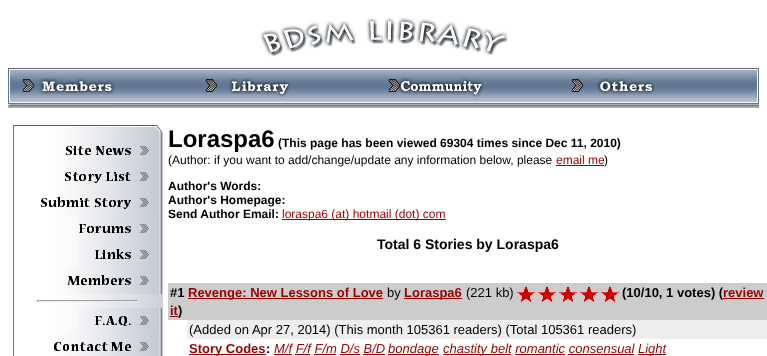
async function draw(canvas) {
  canvas.width = 767;
  canvas.height = 356;
  const ctx = canvas.getContext('2d');
  ctx.miterLimit = 4;
  ctx.fontKerning = 'normal';
  function label(s, x, y, font, color) {
    ctx.font = font;
    ctx.fillStyle = color;
    ctx.fillText(s, x, y);
  }
  function rect(x, y, w, h, color) {
    ctx.fillStyle = color;
    ctx.fillRect(x, y, w, h);
  }
  async function image(src, x, y, w, h) {
    const img = new Image();
    img.src = src;
    await img.decode();
    ctx.drawImage(img, x, y, w, h);
  }

  rect(0, 0, 767, 356, '#fff');
  await image('assets/img1.png', 260, 17, 248, 40);
  await image('assets/img2.png', 8, 68, 751, 40);
  await image('assets/img3.png', 8, 69, 2, 37);
  await image('assets/img4.png', 18, 78, 100, 29);
  await image('assets/img5.png', 205, 78, 86, 19);
  await image('assets/img6.png', 384, 77, 100, 21);
  await image('assets/img7.png', 571, 78, 84, 17);
  await image('assets/img8.png', 757, 69, 2, 34);
  await image('assets/img9.png', 13, 125, 150, 13);
  await image('assets/img10.png', 13, 138, 150, 218);
  await image('assets/img11.png', 66, 138, 97, 26);
  await image('assets/img12.png', 65, 164, 98, 26);
  await image('assets/img13.png', 41, 190, 122, 26);
  await image('assets/img14.png', 78, 216, 85, 26);
  await image('assets/img15.png', 78, 242, 85, 26);
  await image('assets/img16.png', 67, 268, 96, 26);
  rect(37, 300, 102, 1, '#9f9f9f');
  rect(138, 300, 1, 2, '#eee');
  rect(37, 301, 102, 1, '#eee');
  rect(37, 300, 1, 2, '#9f9f9f');
  await image('assets/img17.png', 78, 308, 85, 26);
  await image('assets/img18.png', 54, 334, 109, 22);
  label('Loraspa6', 168, 147, 'bold 24px Liberation Sans', '#000');
  label('(This page has been viewed 69304 times since Dec 11, 2010)', 278, 147, 'bold 12px Liberation Sans', '#000');
  label('(Author: if you want to add/change/update any information below, please', 168, 164, '12px Liberation Sans', '#000');
  label('email me', 556, 164, '12px Liberation Sans', '#900');
  rect(556, 165, 48, 1, '#900');
  label(')', 604, 164, '12px Liberation Sans', '#000');
  label('Author\'s Words:', 168, 190, 'bold 12px Liberation Sans', '#000');
  label('Author\'s Homepage:', 168, 204, 'bold 12px Liberation Sans', '#000');
  label('Send Author Email:', 168, 218, 'bold 12px Liberation Sans', '#000');
  rect(282, 219, 164, 1, '#900');
  label('loraspa6 (at) hotmail (dot) com', 282, 218, '12px Liberation Sans', '#900');
  label('Total 6 Stories by Loraspa6', 377, 249, 'bold 14px Liberation Sans', '#000');
  rect(168, 283, 599, 37, '#ccc');
  label('#1', 170, 297, 'bold 13px Liberation Sans', '#000');
  rect(188, 298, 195, 1, '#900');
  label('Revenge: New Lessons of Love', 188, 297, 'bold 13px Liberation Sans', '#900');
  label('by', 387, 297, '13px Liberation Sans', '#000');
  rect(404, 298, 58, 1, '#900');
  label('Loraspa6', 404, 297, 'bold 13px Liberation Sans', '#900');
  label('(221 kb)', 466, 297, '13px Liberation Sans', '#000');
  await image('assets/img19.png', 517, 286, 102, 17);
  label('(10/10, 1 votes) (', 622, 297, 'bold 13px Liberation Sans', '#000');
  rect(723, 298, 41, 1, '#900');
  label('review', 723, 297, 'bold 13px Liberation Sans', '#900');
  label('it', 170, 315, 'bold 13px Liberation Sans', '#900');
  label(')', 178, 315, 'bold 13px Liberation Sans', '#000');
  rect(170, 316, 8, 1, '#900');
  rect(187, 320, 580, 19, '#eee');
  label('(Added on Apr 27, 2014) (This month 105361 readers) (Total 105361 readers)', 189, 334, '13px Liberation Sans', '#000');
  rect(189, 354, 77, 1, '#900');
  label('Story Codes', 189, 353, 'bold 13px Liberation Sans', '#900');
  label(':', 266, 353, 'bold 13px Liberation Sans', '#000');
  label('M/f F/f F/m D/s B/D', 274, 353, 'italic 13px Liberation Sans', '#900');
  rect(274, 354, 18, 1, '#900');
  rect(295, 354, 15, 1, '#900');
  rect(314, 354, 22, 1, '#900');
  rect(340, 354, 20, 1, '#900');
  rect(363, 354, 22, 1, '#900');
  rect(388, 354, 51, 1, '#900');
  label('bondage', 388, 353, 'italic 13px Liberation Sans', '#900');
  rect(443, 354, 68, 1, '#900');
  label('chastity belt romantic consensual', 443, 353, 'italic 13px Liberation Sans', '#900');
  rect(515, 354, 50, 1, '#900');
  rect(568, 354, 66, 1, '#900');
  rect(638, 354, 28, 1, '#900');
  label('Light', 638, 353, 'italic 13px Liberation Sans', '#900');
}

draw(document.querySelector('canvas'));
